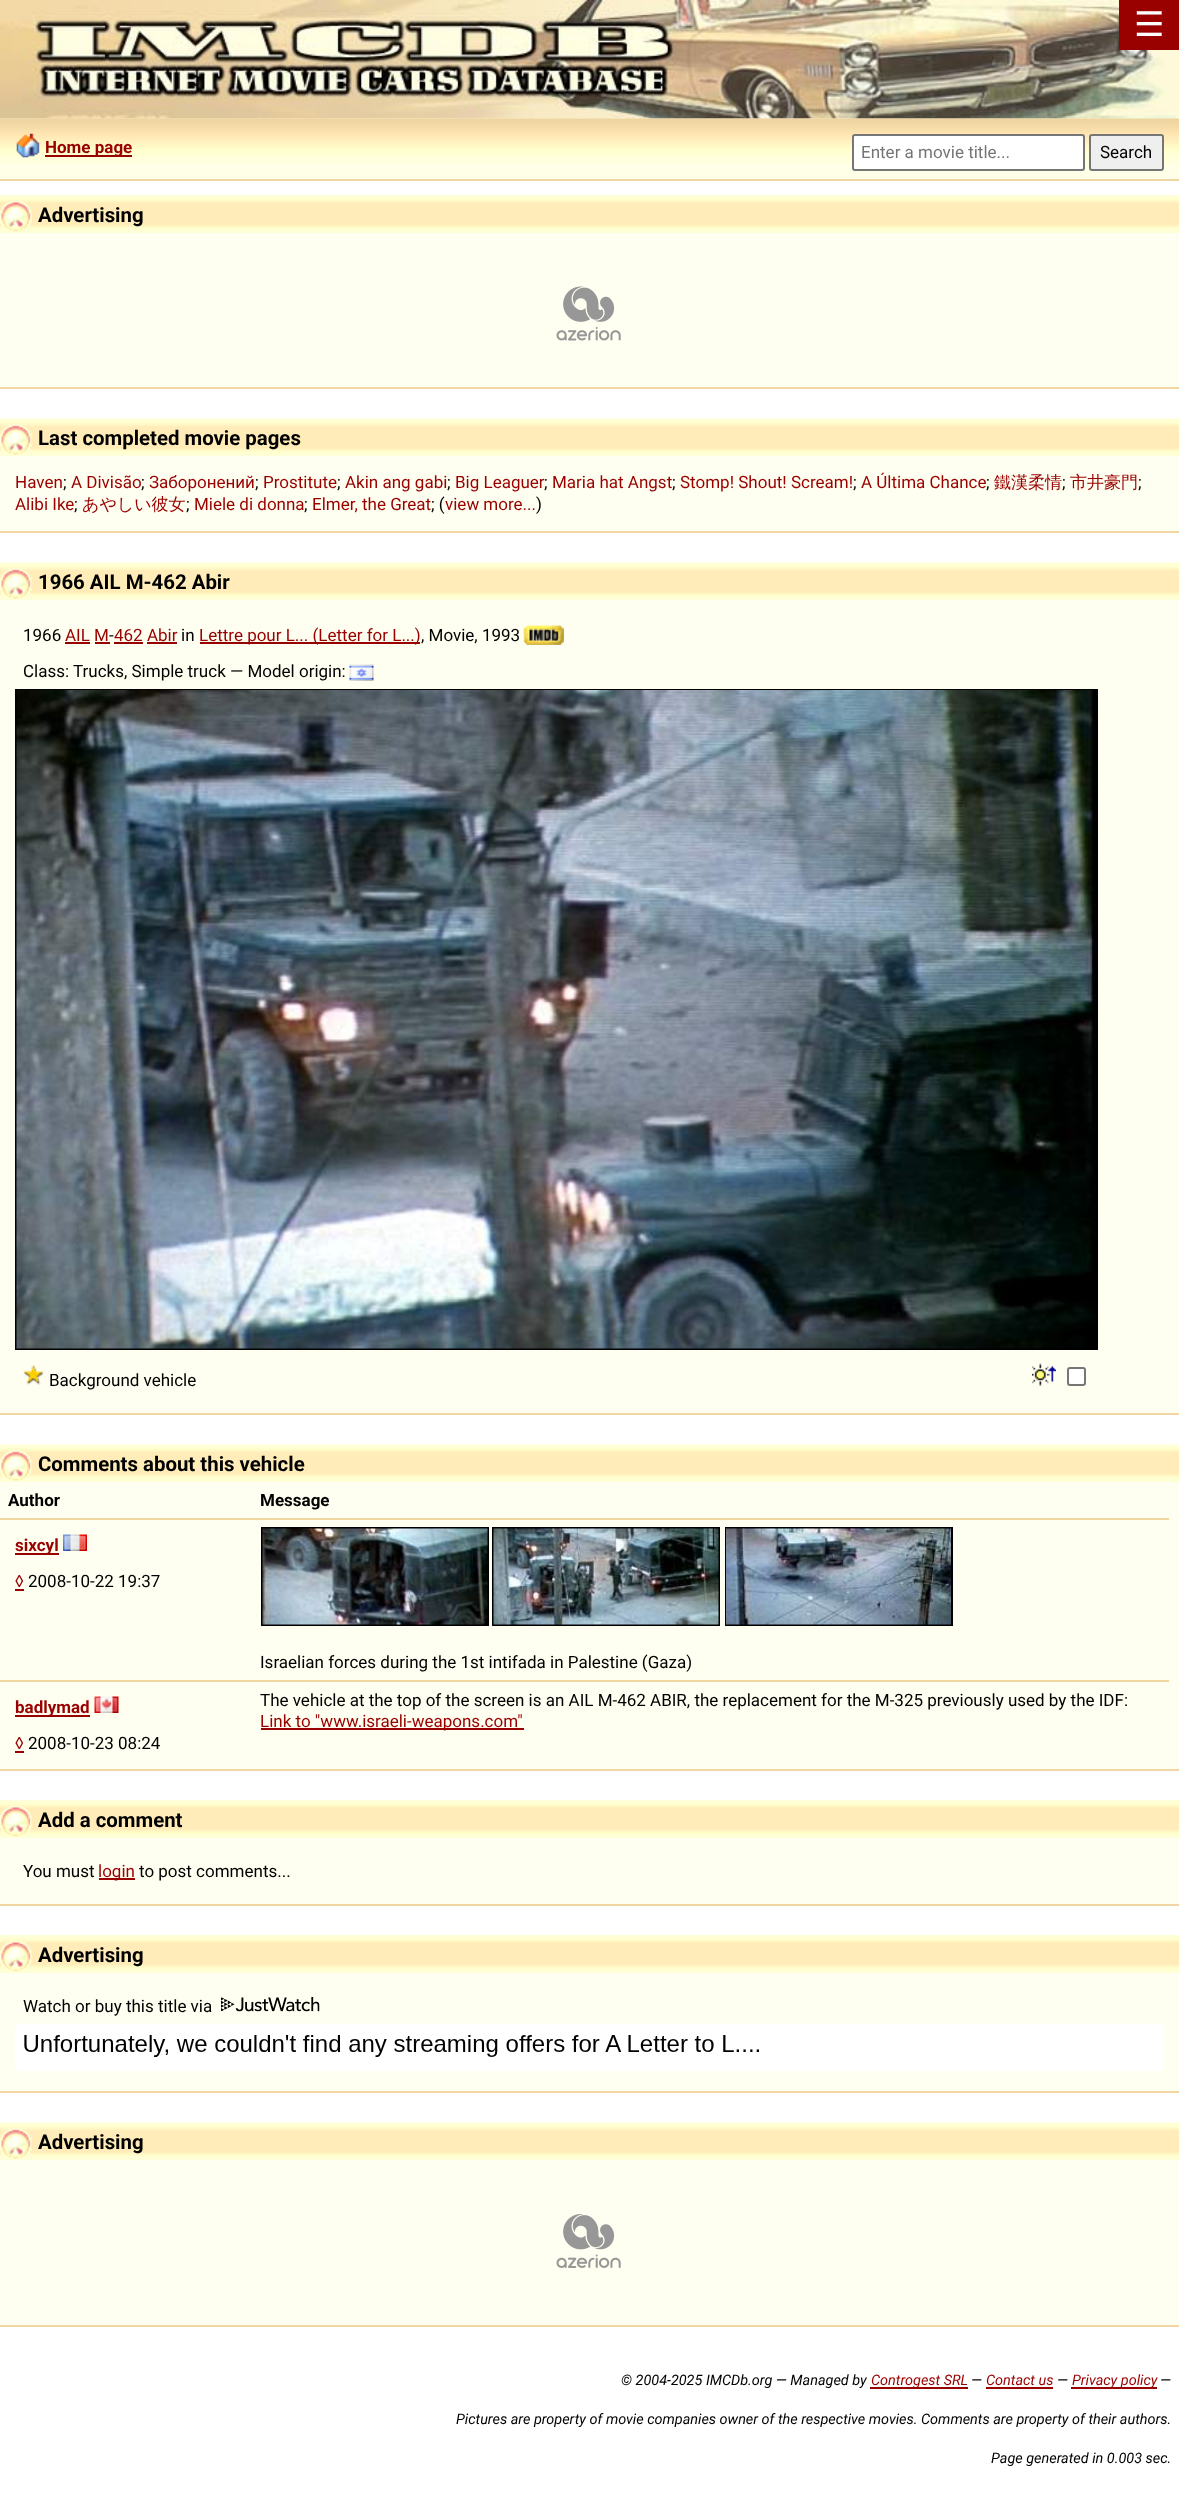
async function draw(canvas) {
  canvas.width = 1179;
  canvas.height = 2509;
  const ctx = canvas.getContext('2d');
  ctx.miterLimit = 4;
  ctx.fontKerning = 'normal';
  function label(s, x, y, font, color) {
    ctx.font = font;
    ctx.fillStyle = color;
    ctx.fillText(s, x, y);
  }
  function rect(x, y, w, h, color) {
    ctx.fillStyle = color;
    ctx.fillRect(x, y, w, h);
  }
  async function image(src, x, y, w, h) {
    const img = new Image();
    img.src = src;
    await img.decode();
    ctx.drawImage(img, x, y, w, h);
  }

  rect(0, 0, 1179, 2509, '#fff');
  rect(0, 50, 1179, 69, '#fef9d9');
  await image('assets/img1.png', 0, 0, 1176, 119);
  rect(1119, 0, 60, 50, '#900');
  label('☰', 1134, 36, '34px DejaVu Sans', '#fff');
  rect(0, 164, 1179, 15, '#ffffe7');
  await image('assets/img2.png', 0, 118, 1179, 46);
  rect(0, 179, 1179, 2, '#efd6a3');
  await image('assets/img3.png', 16, 133, 24, 25);
  rect(45, 155, 87, 2, '#900');
  label('Home page', 45, 153, 'bold 17px Roboto', '#900');
  ctx.fillStyle = '#fff';
  ctx.beginPath();
  ctx.roundRect(853, 135, 231, 35, 2);
  ctx.fill();
  ctx.strokeStyle = '#767676';
  ctx.lineWidth = 2;
  ctx.stroke();
  label('Enter a movie title...', 861, 158, '17px Roboto', '#757575');
  ctx.fillStyle = '#efefef';
  ctx.beginPath();
  ctx.roundRect(1090, 135, 73, 35, 2);
  ctx.fill();
  ctx.stroke();
  label('Search', 1100, 158, '17px Roboto', '#000');
  rect(0, 233, 1179, 154, '#fffff1');
  rect(0, 387, 1179, 2, '#efd6a3');
  rect(0, 195, 1179, 38, '#ffffd7');
  await image('assets/img4.png', 0, 198, 1179, 32);
  await image('assets/img5.png', 0, 201, 32, 31);
  label('Advertising', 38, 222, 'bold 20.4px Roboto', '#000');
  await image('assets/img6.png', 556, 286, 65, 55);
  rect(0, 456, 1179, 75, '#fffff1');
  rect(0, 531, 1179, 2, '#efd6a3');
  rect(0, 453, 1179, 3, '#ffffd7');
  await image('assets/img7.png', 0, 418, 1179, 35);
  await image('assets/img8.png', 0, 424, 32, 31);
  label('Last completed movie pages', 38, 445, 'bold 20.4px Roboto', '#000');
  label('Haven', 15, 488, '17px Roboto', '#900');
  label(';', 63, 488, '17px Roboto', '#000');
  label('A Divisão', 71, 488, '17px Roboto', '#900');
  label(';', 141, 488, '17px Roboto', '#000');
  label('Заборонений', 149, 488, '17px Roboto', '#900');
  label(';', 255, 488, '17px Roboto', '#000');
  label('Prostitute', 263, 488, '17px Roboto', '#900');
  label(';', 337, 488, '17px Roboto', '#000');
  label('Akin ang gabi', 345, 488, '17px Roboto', '#900');
  label(';', 447, 488, '17px Roboto', '#000');
  label('Big Leaguer', 455, 488, '17px Roboto', '#900');
  label(';', 544, 488, '17px Roboto', '#000');
  label('Maria hat Angst', 552, 488, '17px Roboto', '#900');
  label(';', 672, 488, '17px Roboto', '#000');
  label('Stomp! Shout! Scream!', 680, 488, '17px Roboto', '#900');
  label(';', 853, 488, '17px Roboto', '#000');
  label('A Última Chance', 861, 488, '17px Roboto', '#900');
  label(';', 986, 488, '17px Roboto', '#000');
  label('鐵漢柔情', 994, 488, '500 17px WenQuanYi Zen Hei', '#900');
  label(';', 1062, 488, '17px Roboto', '#000');
  label('市井豪門', 1070, 488, '500 17px WenQuanYi Zen Hei', '#900');
  label(';', 1138, 488, '17px Roboto', '#000');
  label('Alibi Ike', 15, 510, '17px Roboto', '#900');
  label(';', 74, 510, '17px Roboto', '#000');
  label('あやしい彼女', 82, 510, '500 17px WenQuanYi Zen Hei', '#900');
  label(';', 186, 510, '17px Roboto', '#000');
  label('Miele di donna', 194, 510, '17px Roboto', '#900');
  label(';', 304, 510, '17px Roboto', '#000');
  label('Elmer, the Great', 312, 510, '17px Roboto', '#900');
  label('; (', 431, 510, '17px Roboto', '#000');
  label('view more...', 445, 510, '17px Roboto', '#900');
  label(')', 536, 510, '17px Roboto', '#000');
  rect(0, 600, 1179, 813, '#fffff1');
  rect(0, 1413, 1179, 2, '#efd6a3');
  rect(0, 597, 1179, 3, '#ffffd7');
  await image('assets/img9.png', 0, 562, 1179, 35);
  await image('assets/img10.png', 0, 568, 32, 31);
  label('1966 AIL M-462 Abir', 38, 589, 'bold 20.4px Roboto', '#000');
  label('1966', 23, 641, '17px Roboto', '#000');
  label('AIL M', 65, 641, '17px Roboto', '#900');
  rect(65, 642, 25, 2, '#900');
  label('-', 109, 641, '17px Roboto', '#000');
  label('462 Abir', 114, 641, '17px Roboto', '#900');
  rect(114, 642, 29, 2, '#900');
  label('in', 181, 641, '17px Roboto', '#000');
  rect(200, 642, 220, 2, '#900');
  label('Lettre pour L... (Letter for L...)', 199, 641, '17px Roboto', '#900');
  label(', Movie, 1993', 421, 641, '17px Roboto', '#000');
  await image('assets/img11.png', 523, 625, 41, 20);
  rect(95, 642, 15, 2, '#900');
  rect(147, 642, 30, 2, '#900');
  label('Class: Trucks, Simple truck — Model origin:', 23, 677, '17px Roboto', '#000');
  await image('assets/img12.png', 349, 664, 25, 17);
  ctx.strokeStyle = '#000';
  ctx.strokeRect(16, 690, 1081, 659);
  await image('assets/img13.png', 16, 690, 1081, 659);
  await image('assets/img14.png', 23, 1364, 21, 21);
  label('Background vehicle', 49, 1386, '17px Roboto', '#000');
  await image('assets/img15.png', 1032, 1363, 24, 23);
  ctx.fillStyle = '#fff';
  ctx.beginPath();
  ctx.roundRect(1068, 1368, 17, 17, 2);
  ctx.fill();
  ctx.strokeStyle = '#767676';
  ctx.stroke();
  rect(0, 1482, 1179, 287, '#fffff1');
  rect(0, 1769, 1179, 2, '#efd6a3');
  rect(0, 1479, 1179, 3, '#ffffd7');
  await image('assets/img16.png', 0, 1444, 1179, 35);
  await image('assets/img17.png', 0, 1450, 32, 31);
  label('Comments about this vehicle', 38, 1471, 'bold 20.4px Roboto', '#000');
  label('Author', 8, 1506, 'bold 17px Roboto', '#000');
  label('Message', 260, 1506, 'bold 17px Roboto', '#000');
  rect(15, 1553, 44, 2, '#900');
  label('sixcyl', 15, 1551, 'bold 17px Roboto', '#900');
  await image('assets/img18.png', 63, 1534, 24, 17);
  label('◊', 15, 1587, '17px Roboto', '#900');
  rect(15, 1589, 9, 2, '#900');
  label('2008-10-22 19:37', 28, 1587, '17px Roboto', '#000');
  rect(0, 1518, 1169, 2, '#efd6a3');
  ctx.strokeStyle = '#000';
  ctx.strokeRect(262, 1528, 226, 97);
  await image('assets/img19.png', 262, 1528, 226, 97);
  ctx.strokeRect(493, 1528, 226, 97);
  await image('assets/img20.png', 493, 1528, 226, 97);
  ctx.strokeRect(726, 1528, 226, 97);
  await image('assets/img21.png', 726, 1528, 225, 97);
  label('Israelian forces during the 1st intifada in Palestine (Gaza)', 260, 1668, '17px Roboto', '#000');
  rect(15, 1715, 75, 2, '#900');
  label('badlymad', 15, 1713, 'bold 17px Roboto', '#900');
  await image('assets/img22.png', 94, 1696, 25, 17);
  label('◊', 15, 1749, '17px Roboto', '#900');
  rect(15, 1751, 9, 2, '#900');
  label('2008-10-23 08:24', 28, 1749, '17px Roboto', '#000');
  rect(0, 1680, 1169, 2, '#efd6a3');
  label('The vehicle at the top of the screen is an AIL M-462 ABIR, the replacement for the M-325 previously used by the IDF:', 260, 1706, '17px Roboto', '#000');
  rect(261, 1728, 263, 2, '#900');
  label('Link to "www.israeli-weapons.com"', 260, 1727, '17px Roboto', '#900');
  rect(0, 1838, 1179, 66, '#fffff1');
  rect(0, 1904, 1179, 2, '#efd6a3');
  rect(0, 1800, 1179, 38, '#ffffd7');
  await image('assets/img23.png', 0, 1803, 1179, 32);
  await image('assets/img24.png', 0, 1806, 32, 31);
  label('Add a comment', 38, 1827, 'bold 20.4px Roboto', '#000');
  label('You must', 23, 1877, '17px Roboto', '#000');
  rect(99, 1878, 36, 2, '#900');
  label('login', 98, 1877, '17px Roboto', '#900');
  label('to post comments...', 139, 1877, '17px Roboto', '#000');
  rect(0, 1973, 1179, 118, '#fffff1');
  rect(0, 2091, 1179, 2, '#efd6a3');
  rect(0, 1935, 1179, 38, '#ffffd7');
  await image('assets/img25.png', 0, 1938, 1179, 32);
  await image('assets/img26.png', 0, 1941, 32, 31);
  label('Advertising', 38, 1962, 'bold 20.4px Roboto', '#000');
  label('Watch or buy this title via', 23, 2012, '17px Roboto', '#000');
  await image('assets/img27.png', 221, 1997, 99, 15);
  await image('assets/img28.png', 15, 2024, 1149, 47);
  rect(0, 2160, 1179, 165, '#fffff1');
  rect(0, 2325, 1179, 2, '#efd6a3');
  rect(0, 2157, 1179, 3, '#ffffd7');
  await image('assets/img29.png', 0, 2122, 1179, 35);
  await image('assets/img10.png', 0, 2128, 32, 31);
  label('Advertising', 38, 2149, 'bold 20.4px Roboto', '#000');
  await image('assets/img30.png', 556, 2214, 65, 54);
  label('© 2004-2025 IMCDb.org — Managed by', 621, 2385, 'italic 14.45px Roboto', '#000');
  rect(870, 2387, 98, 2, '#900');
  label('Controgest SRL', 871, 2385, 'italic 14.45px Roboto', '#900');
  label('—', 971, 2385, 'italic 14.45px Roboto', '#000');
  label('Contact us', 986, 2385, 'italic 14.45px Roboto', '#900');
  rect(986, 2387, 67, 2, '#900');
  label('—', 1057, 2385, 'italic 14.45px Roboto', '#000');
  rect(1071, 2387, 86, 2, '#900');
  label('Privacy policy', 1072, 2385, 'italic 14.45px Roboto', '#900');
  label('—', 1160, 2385, 'italic 14.45px Roboto', '#000');
  label('Pictures are property of movie companies owner of the respective movies. Comments are property of their authors.', 456, 2424, 'italic 14.45px Roboto', '#000');
  label('Page generated in 0.003 sec.', 991, 2463, 'italic 14.45px Roboto', '#000');
}

draw(document.querySelector('canvas'));
